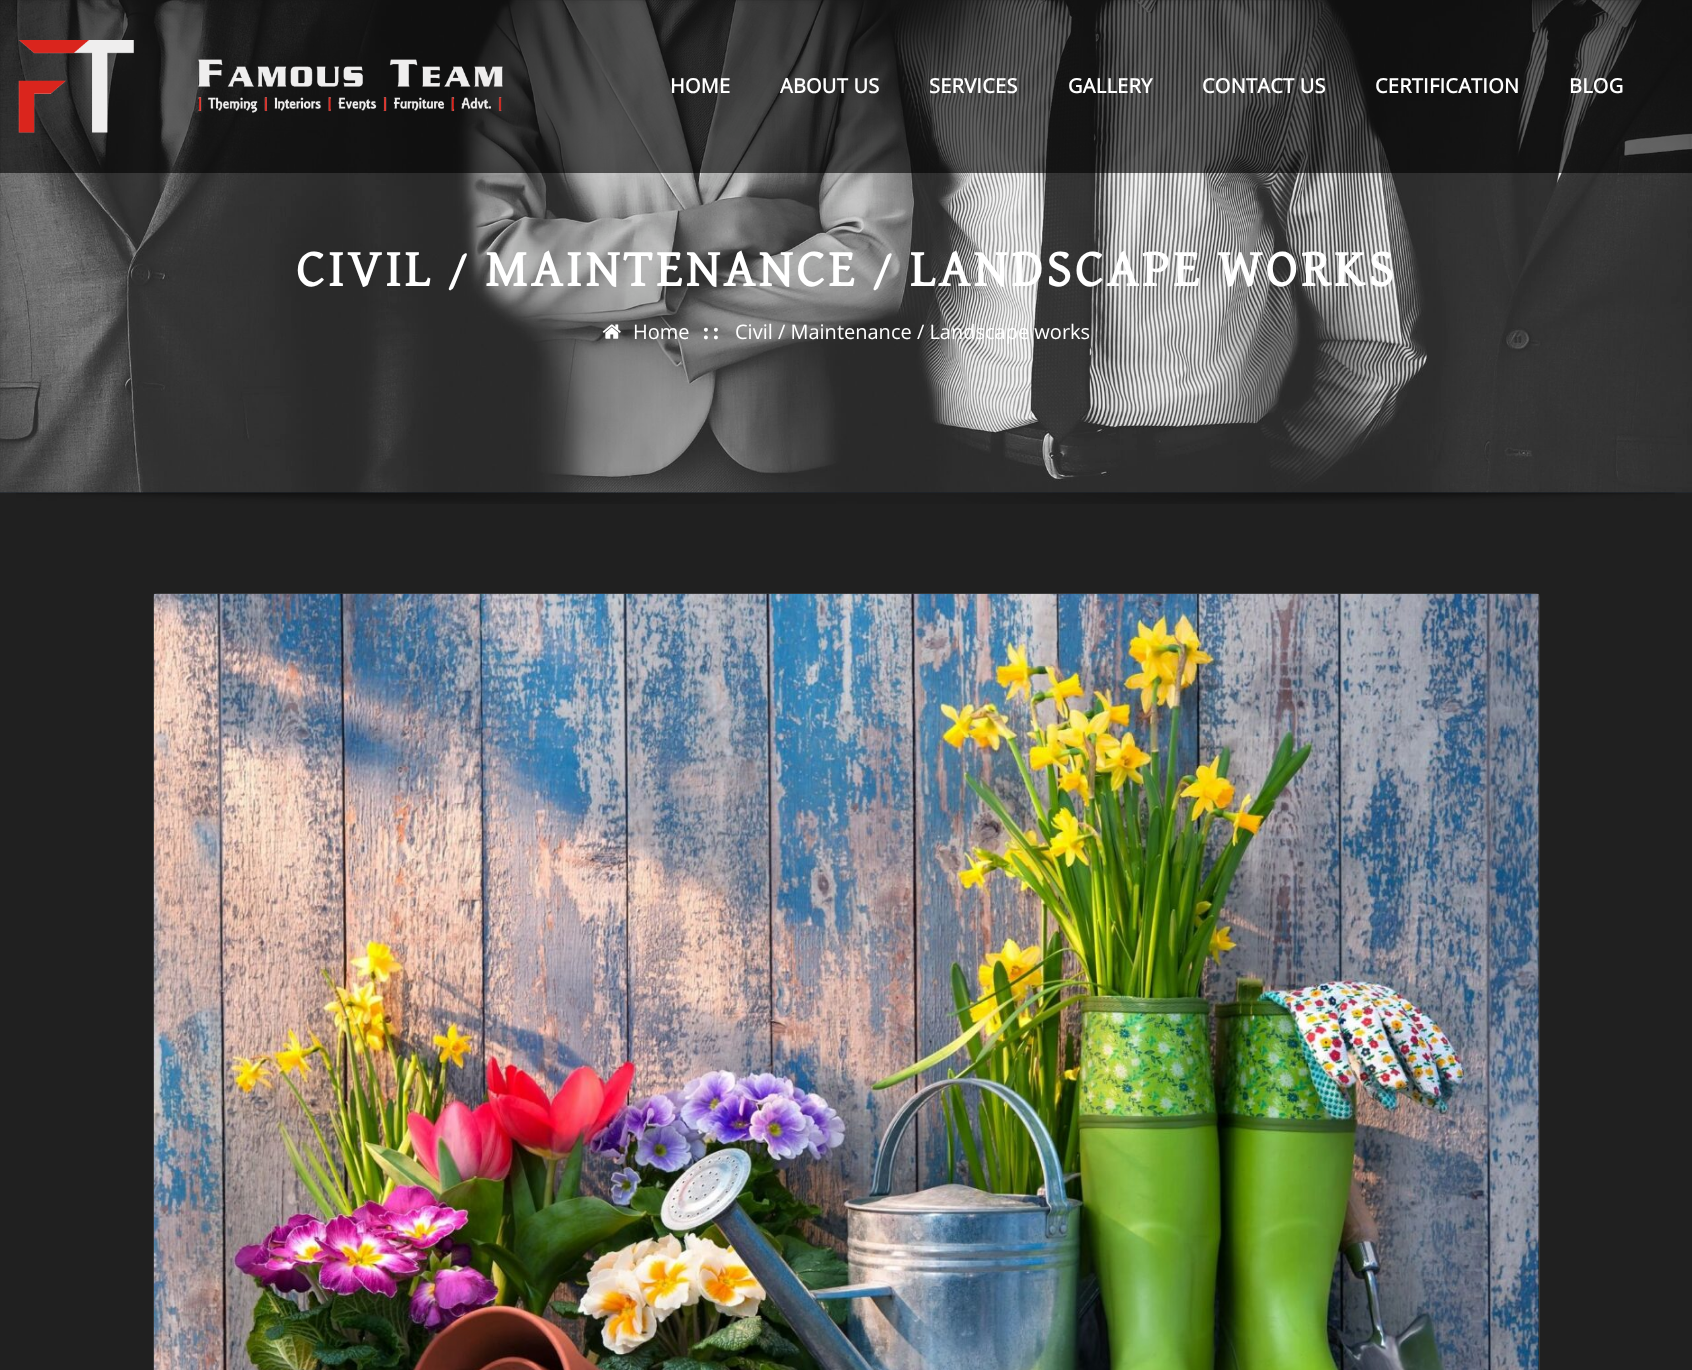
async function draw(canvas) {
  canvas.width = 1692;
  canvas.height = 1370;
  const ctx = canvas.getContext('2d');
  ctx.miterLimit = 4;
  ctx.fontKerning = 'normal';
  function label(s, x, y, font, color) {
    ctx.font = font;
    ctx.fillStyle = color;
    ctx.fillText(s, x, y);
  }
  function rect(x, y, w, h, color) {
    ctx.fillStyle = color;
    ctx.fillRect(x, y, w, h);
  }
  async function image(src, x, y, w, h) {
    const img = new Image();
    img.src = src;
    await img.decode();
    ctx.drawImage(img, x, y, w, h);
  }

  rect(0, 0, 1692, 1370, '#17212c');
  await image('assets/img2.png', 0, 0, 1692, 493);
  rect(0, 0, 1692, 173, '#00000099');
  await image('assets/img1.png', 18, 40, 485, 93);
  ctx.letterSpacing = '0.25px';
  label('HOME', 670, 93, 'bold 20px Open Sans', '#fff');
  label('ABOUT US', 780, 93, 'bold 20px Open Sans', '#fff');
  label('SERVICES', 929, 93, 'bold 20px Open Sans', '#fff');
  label('GALLERY', 1068, 93, 'bold 20px Open Sans', '#fff');
  label('CONTACT US', 1202, 93, 'bold 20px Open Sans', '#fff');
  label('CERTIFICATION', 1375, 93, 'bold 20px Open Sans', '#fff');
  label('BLOG', 1569, 93, 'bold 20px Open Sans', '#fff');
  ctx.letterSpacing = '3.75px';
  label('CIVIL / MAINTENANCE / LANDSCAPE WORKS', 296, 286, 'bold 52.5px David Libre', '#fff');
  await image('assets/img3.png', 602, 324, 19, 15);
  ctx.letterSpacing = '0px';
  label('Home', 633, 339, '20px Open Sans', '#fff');
  ctx.letterSpacing = '2px';
  label('::', 702, 339, 'bold 24px Liberation Serif', '#fff');
  ctx.letterSpacing = '0px';
  label('Civil / Maintenance / Landscape works', 735, 339, '20px Open Sans', '#fff');
  rect(0, 493, 1692, 877, '#202020');
  await image('assets/img4.png', 16, 492, 1659, 12);
  ctx.fillStyle = '#18191b';
  ctx.beginPath();
  ctx.roundRect(153.5, 593.5, 1386, 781, 3.5);
  ctx.fill();
  ctx.strokeStyle = '#333';
  ctx.stroke();
  await image('assets/img5.png', 153, 593, 1386, 777);
}

draw(document.querySelector('canvas'));
